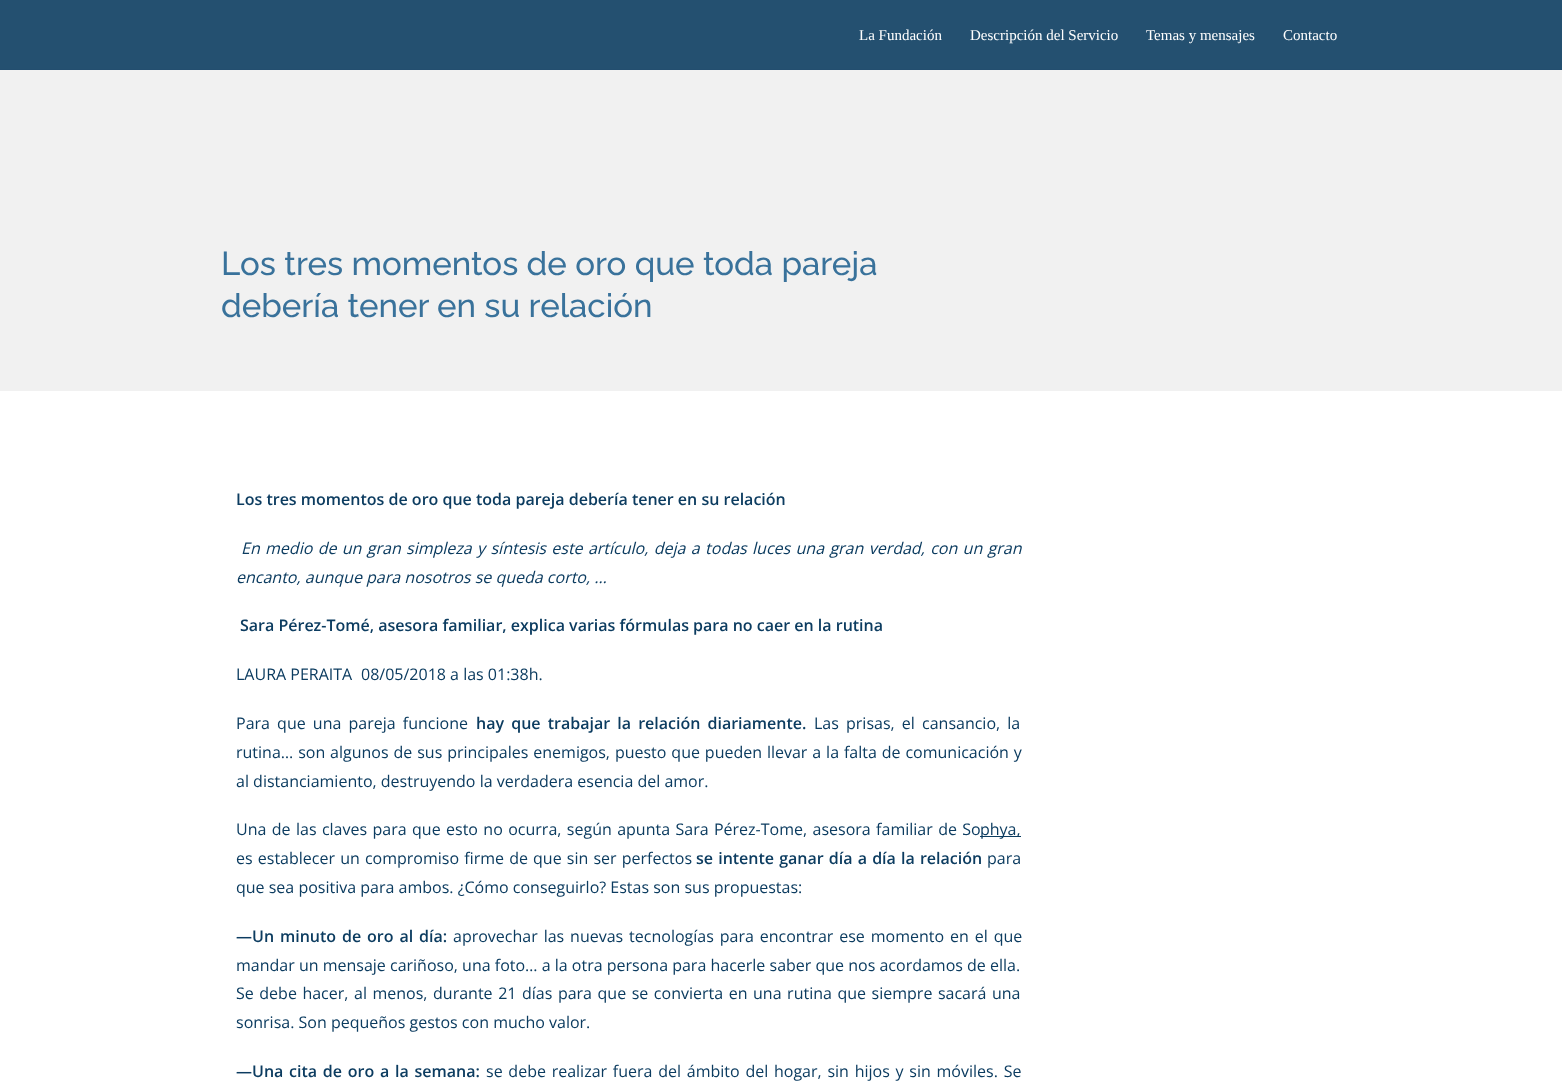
async function draw(canvas) {
  canvas.width = 1562;
  canvas.height = 1087;
  const ctx = canvas.getContext('2d');
  ctx.miterLimit = 4;
  ctx.fontKerning = 'normal';
  function label(s, x, y, font, color) {
    ctx.font = font;
    ctx.fillStyle = color;
    ctx.fillText(s, x, y);
  }
  function rect(x, y, w, h, color) {
    ctx.fillStyle = color;
    ctx.fillRect(x, y, w, h);
  }

  rect(0, 0, 1562, 1087, '#fff');
  rect(0, 0, 1562, 69, '#245070');
  label('La Fundación', 859, 40, '15px Liberation Serif', '#fff');
  label('Descripción del Servicio', 970, 40, '15px Liberation Serif', '#fff');
  label('Temas y mensajes', 1146, 40, '15px Liberation Serif', '#fff');
  label('Contacto', 1283, 40, '15px Liberation Serif', '#fff');
  rect(0, 70, 1562, 321, '#f1f1f1');
  rect(0, 69, 1562, 1, '#234e6f');
  label('Los tres momentos de oro que toda pareja', 221, 275, '500 33px Raleway', '#39729b');
  label('debería tener en su relación', 221, 317, '500 33px Raleway', '#39729b');
  label('Los tres momentos de oro que toda pareja debería tener en su relación', 236, 505, '600 16px Open Sans', '#0c3c60');
  ctx.wordSpacing = '1.2px';
  label('En medio de un gran simpleza y síntesis este artículo, deja a todas luces una gran verdad, con un gran', 241, 554, 'italic 16px Open Sans', '#0c3c60');
  ctx.wordSpacing = '0px';
  label('encanto, aunque para nosotros se queda corto, …', 236, 583, 'italic 16px Open Sans', '#0c3c60');
  label('Sara Pérez-Tomé, asesora familiar, explica varias fórmulas para no caer en la rutina', 240, 631, '600 16px Open Sans', '#0c3c60');
  label('LAURA PERAITA', 236, 680, '16px Open Sans', '#0c3c60');
  label('08/05/2018 a las 01:38h.', 361, 680, '16px Open Sans', '#0c3c60');
  ctx.wordSpacing = '3px';
  label('Para que una pareja funcione', 236, 729, '16px Open Sans', '#0c3c60');
  label('hay que trabajar la relación diariamente.', 476, 729, '600 16px Open Sans', '#0c3c60');
  label('Las prisas, el cansancio, la', 814, 729, '16px Open Sans', '#0c3c60');
  ctx.wordSpacing = '0.75px';
  label('rutina… son algunos de sus principales enemigos, puesto que pueden llevar a la falta de comunicación y', 236, 758, '16px Open Sans', '#0c3c60');
  ctx.wordSpacing = '0px';
  label('al distanciamiento, destruyendo la verdadera esencia del amor.', 236, 787, '16px Open Sans', '#0c3c60');
  ctx.wordSpacing = '1.25px';
  label('Una de las claves para que esto no ocurra, según apunta Sara Pérez-Tome, asesora familiar de So', 236, 835, '16px Open Sans', '#0c3c60');
  rect(980, 836, 41, 1, '#0c3c60');
  ctx.wordSpacing = '0px';
  label('phya,', 980, 835, '16px Open Sans', '#0c3c60');
  ctx.wordSpacing = '1px';
  label('es establecer un compromiso firme de que sin ser perfectos', 236, 864, '16px Open Sans', '#0c3c60');
  label('se intente ganar día a día la relación', 696, 864, '600 16px Open Sans', '#0c3c60');
  ctx.wordSpacing = '0px';
  label('para', 987, 864, '16px Open Sans', '#0c3c60');
  label('que sea positiva para ambos. ¿Cómo conseguirlo? Estas son sus propuestas:', 236, 893, '16px Open Sans', '#0c3c60');
  ctx.wordSpacing = '1.75px';
  label('—Un minuto de oro al día:', 236, 942, '600 16px Open Sans', '#0c3c60');
  label('aprovechar las nuevas tecnologías para encontrar ese momento en el que', 453, 942, '16px Open Sans', '#0c3c60');
  ctx.wordSpacing = '0px';
  label('mandar un mensaje cariñoso, una foto… a la otra persona para hacerle saber que nos acordamos de ella.', 236, 971, '16px Open Sans', '#0c3c60');
  ctx.wordSpacing = '1.4px';
  label('Se debe hacer, al menos, durante 21 días para que se convierta en una rutina que siempre sacará una', 236, 999, '16px Open Sans', '#0c3c60');
  ctx.wordSpacing = '0px';
  label('sonrisa. Son pequeños gestos con mucho valor.', 236, 1028, '16px Open Sans', '#0c3c60');
  ctx.wordSpacing = '1.6px';
  label('—Una cita de oro a la semana:', 236, 1077, '600 16px Open Sans', '#0c3c60');
  label('se debe realizar fuera del ámbito del hogar, sin hijos y sin móviles. Se', 486, 1077, '16px Open Sans', '#0c3c60');
}

draw(document.querySelector('canvas'));
